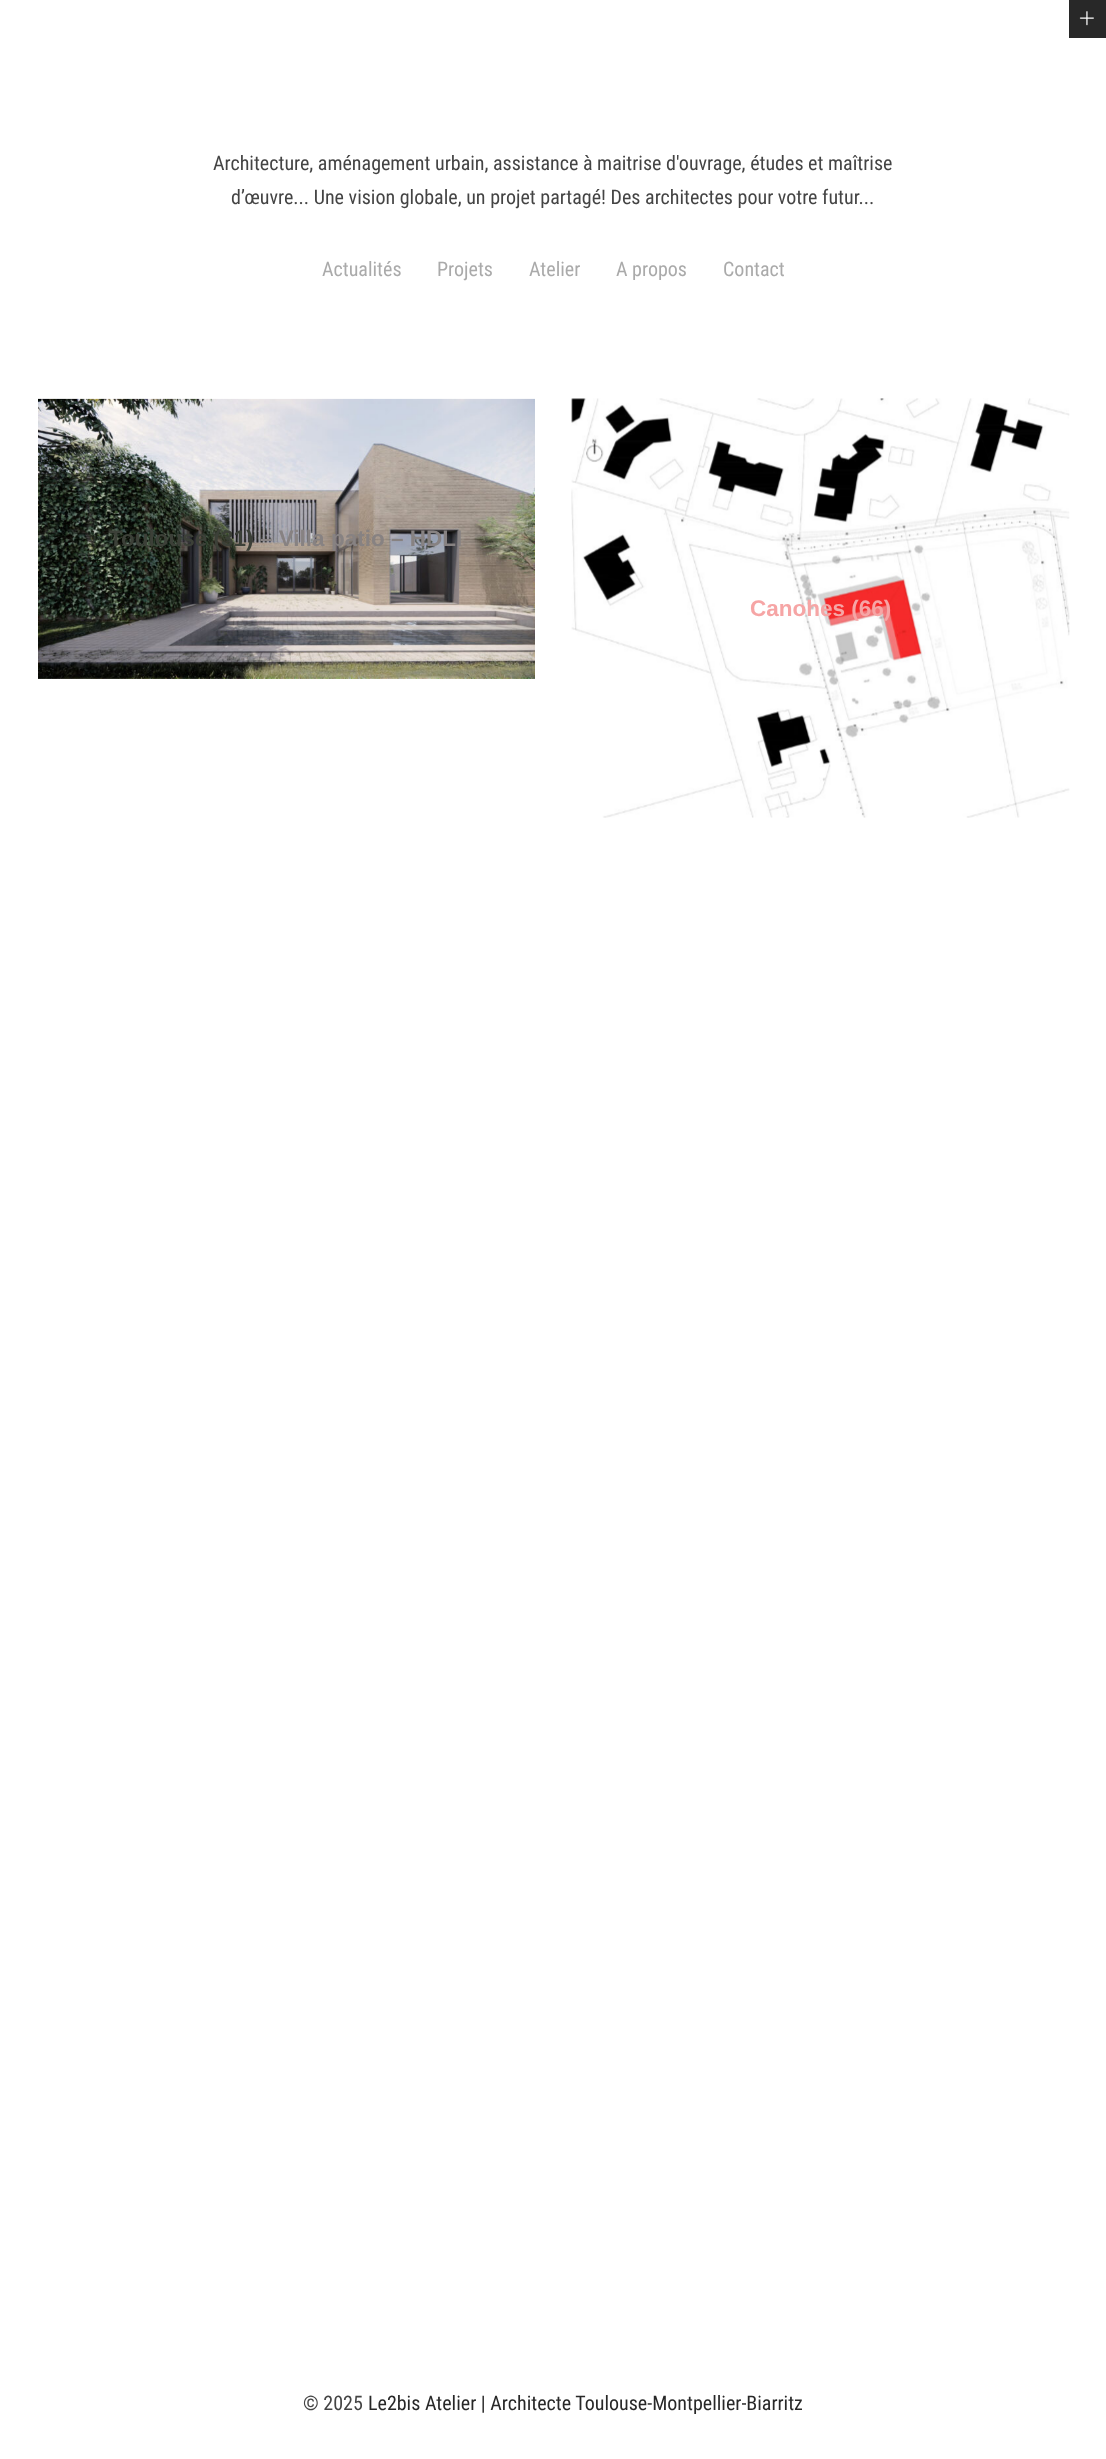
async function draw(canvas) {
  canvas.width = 1106;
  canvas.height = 2459;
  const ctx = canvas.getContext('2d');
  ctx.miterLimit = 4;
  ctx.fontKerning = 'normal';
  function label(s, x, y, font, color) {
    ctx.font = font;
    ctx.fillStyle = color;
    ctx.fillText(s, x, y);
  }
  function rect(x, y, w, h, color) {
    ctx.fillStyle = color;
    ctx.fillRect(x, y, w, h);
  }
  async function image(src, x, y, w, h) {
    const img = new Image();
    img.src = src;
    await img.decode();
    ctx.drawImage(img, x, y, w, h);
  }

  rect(0, 0, 1106, 2459, '#fff');
  rect(1069, 0, 37, 38, '#282828');
  await image('assets/img1.png', 1079, 11, 15, 15);
  label('Architecture, aménagement urbain, assistance à maitrise d\'ouvrage, études et maîtrise', 213, 170, '20px Roboto Condensed', '#444');
  label('d’œuvre... Une vision globale, un projet partagé! Des architectes pour votre futur...', 231, 204, '20px Roboto Condensed', '#444');
  label('Actualités', 322, 276, '20px Roboto Condensed', '#aaa');
  label('Projets', 437, 276, '20px Roboto Condensed', '#aaa');
  label('Atelier', 529, 276, '20px Roboto Condensed', '#aaa');
  label('A propos', 616, 276, '20px Roboto Condensed', '#aaa');
  label('Contact', 723, 276, '20px Roboto Condensed', '#aaa');
  await image('assets/img2.png', 38, 398, 497, 281);
  label('Toulouse (31)', 109, 546, 'bold 22.5px Liberation Sans', '#3c4038');
  label('– Villa patio – HDLI', 260, 546, 'bold 22.5px Liberation Sans', '#878282');
  await image('assets/img3.png', 571, 398, 499, 420);
  label('Canohes (66)', 750, 616, 'bold 22.5px Liberation Sans', '#f6a5a5');
  label('© 2025', 303, 2410, '20px Roboto Condensed', '#444');
  label('Le2bis Atelier | Architecte Toulouse-Montpellier-Biarritz', 368, 2410, '20px Roboto Condensed', '#282828');
}

draw(document.querySelector('canvas'));
